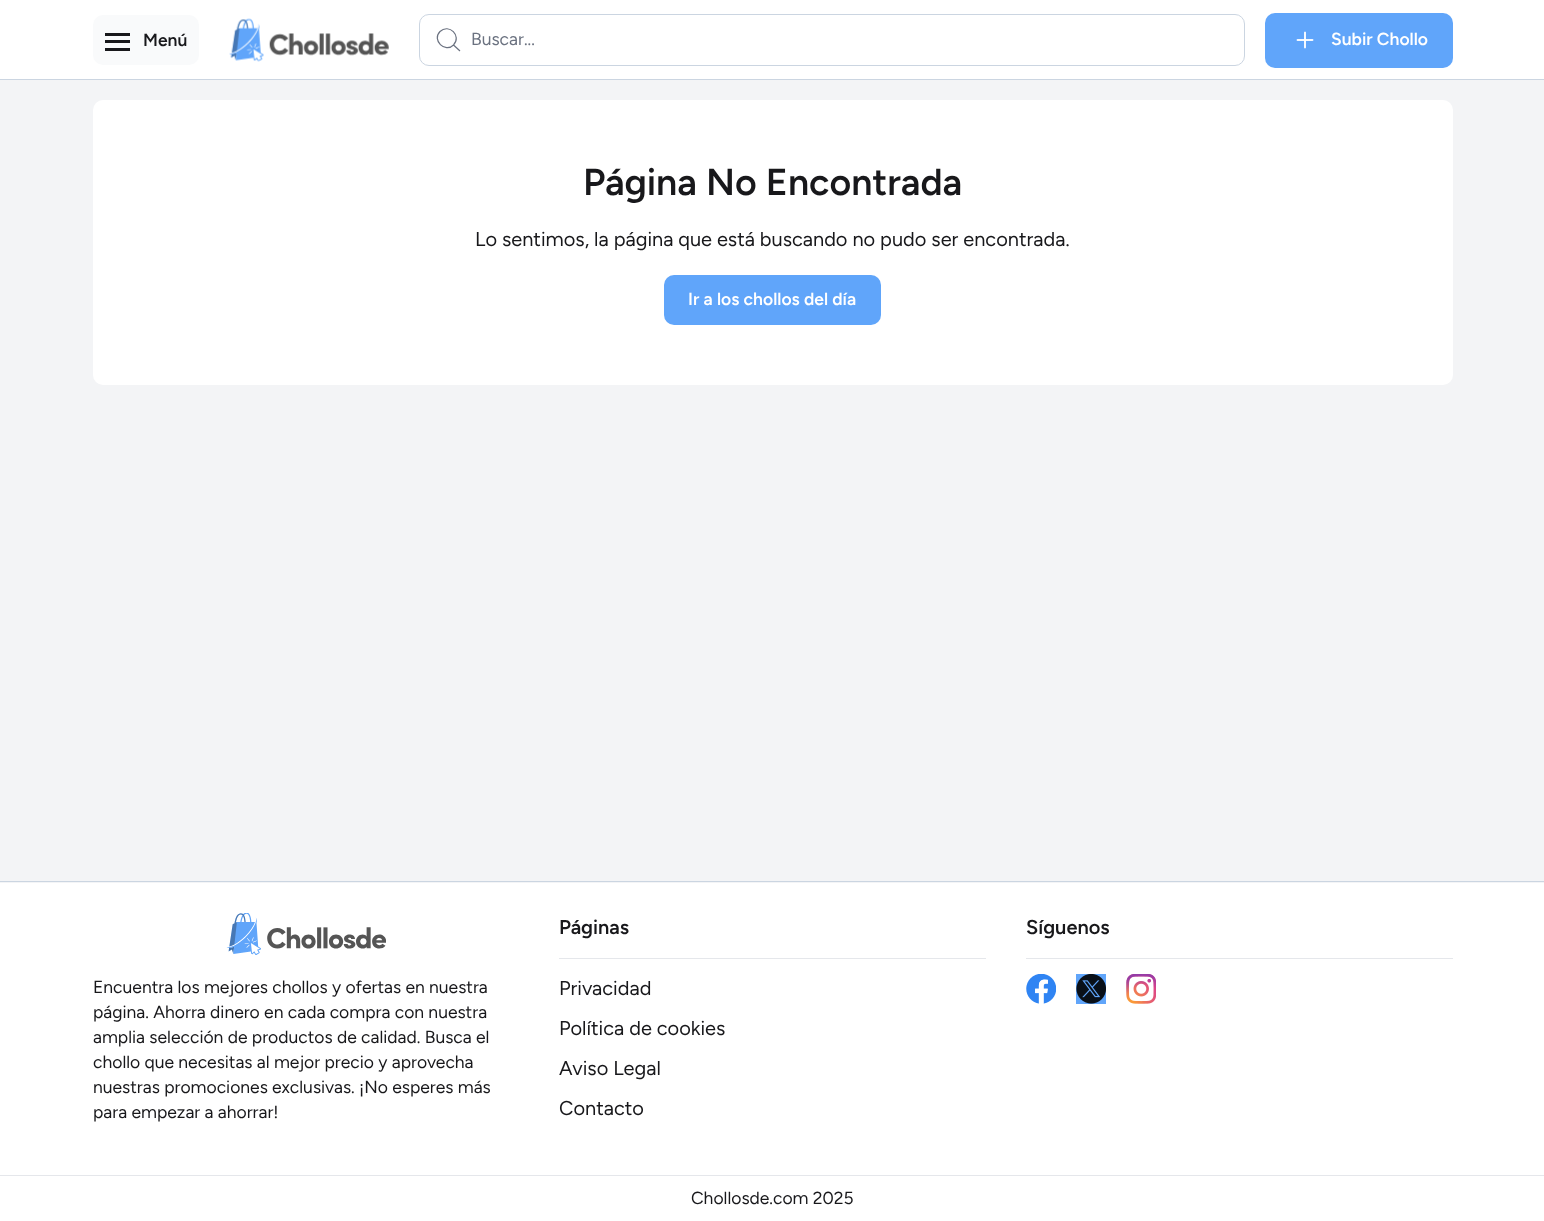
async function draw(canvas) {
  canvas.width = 1544;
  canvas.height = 1221;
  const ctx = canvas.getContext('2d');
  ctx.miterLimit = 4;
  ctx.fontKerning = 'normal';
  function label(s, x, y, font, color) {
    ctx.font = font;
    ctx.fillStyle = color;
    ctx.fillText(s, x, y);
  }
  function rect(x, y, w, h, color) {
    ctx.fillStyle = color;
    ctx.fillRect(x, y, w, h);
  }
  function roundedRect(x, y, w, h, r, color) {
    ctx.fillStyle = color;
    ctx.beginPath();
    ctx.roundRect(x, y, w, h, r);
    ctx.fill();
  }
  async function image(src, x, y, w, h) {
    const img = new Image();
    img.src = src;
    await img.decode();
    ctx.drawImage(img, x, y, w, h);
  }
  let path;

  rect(0, 0, 1544, 1221, '#f3f4f6');
  rect(0, 0, 1544, 79, '#fff');
  rect(0, 79, 1544, 1, '#cbd5e1');
  roundedRect(93, 15, 106, 50, 10, '#f9fafb');
  rect(105, 33, 25, 3, '#18181b');
  rect(105, 40, 25, 3, '#18181b');
  rect(105, 48, 25, 3, '#18181b');
  label('Menú', 143, 46, '600 17.5px Figtree', '#18181b');
  await image('assets/img1.png', 229, 18, 160, 44);
  ctx.beginPath();
  ctx.roundRect(419.5, 14.5, 825, 51, 9.5);
  ctx.strokeStyle = '#cbd5e1';
  ctx.stroke();
  path = new Path2D('M460 51L453.5 45M453.5 45C462 36 449 23 440 31.5C431.5 40 445 53.5 453.5 45Z');
  ctx.strokeStyle = '#6b7280';
  ctx.lineWidth = 1.2;
  ctx.stroke(path);
  label('Buscar...', 471, 45, '300 17.5px Figtree', '#6b7280');
  roundedRect(1265, 13, 188, 55, 10, '#60a5fa');
  await image('assets/img2.png', 1296, 31, 18, 18);
  label('Subir Chollo', 1331, 45, '600 17.5px Figtree', '#fff');
  roundedRect(93, 100, 1360, 285, 10, '#fff');
  label('Página No Encontrada', 583, 195, '600 37.5px Figtree', '#18181b');
  label('Lo sentimos, la página que está buscando no pudo ser encontrada.', 475, 246, '300 20px Figtree', '#18181b');
  roundedRect(664, 275, 217, 50, 10, '#60a5fa');
  label('Ir a los chollos del día', 688, 305, '600 17.5px Figtree', '#fff');
  rect(0, 883, 1544, 338, '#fff');
  rect(0, 881, 1544, 1, '#cbd5e1');
  rect(559, 958, 427, 1, '#e5e7eb');
  label('Páginas', 559, 934, '600 20px Figtree', '#18181b');
  label('Privacidad', 559, 995, '300 20px Figtree', '#18181b');
  label('Política de cookies', 559, 1035, '300 20px Figtree', '#18181b');
  label('Aviso Legal', 559, 1075, '300 20px Figtree', '#18181b');
  label('Contacto', 559, 1115, '300 20px Figtree', '#18181b');
  rect(1026, 958, 427, 1, '#e5e7eb');
  label('Síguenos', 1026, 934, '600 20px Figtree', '#18181b');
  await image('assets/img3.png', 1026, 974, 30, 30);
  rect(1076, 974, 30, 30, '#60a5fa');
  await image('assets/img4.png', 1076, 974, 30, 30);
  await image('assets/img5.png', 1126, 974, 30, 30);
  await image('assets/img6.png', 226, 913, 160, 42);
  label('Encuentra los mejores chollos y ofertas en nuestra', 93, 993, '300 17.5px Figtree', '#18181b');
  label('página. Ahorra dinero en cada compra con nuestra', 93, 1018, '300 17.5px Figtree', '#18181b');
  label('amplia selección de productos de calidad. Busca el', 93, 1043, '300 17.5px Figtree', '#18181b');
  label('chollo que necesitas al mejor precio y aprovecha', 93, 1068, '300 17.5px Figtree', '#18181b');
  label('nuestras promociones exclusivas. ¡No esperes más', 93, 1093, '300 17.5px Figtree', '#18181b');
  label('para empezar a ahorrar!', 93, 1118, '300 17.5px Figtree', '#18181b');
  rect(0, 1175, 1544, 1, '#e5e7eb');
  label('Chollosde.com 2025', 691, 1204, '300 17.5px Figtree', '#18181b');
}

draw(document.querySelector('canvas'));
